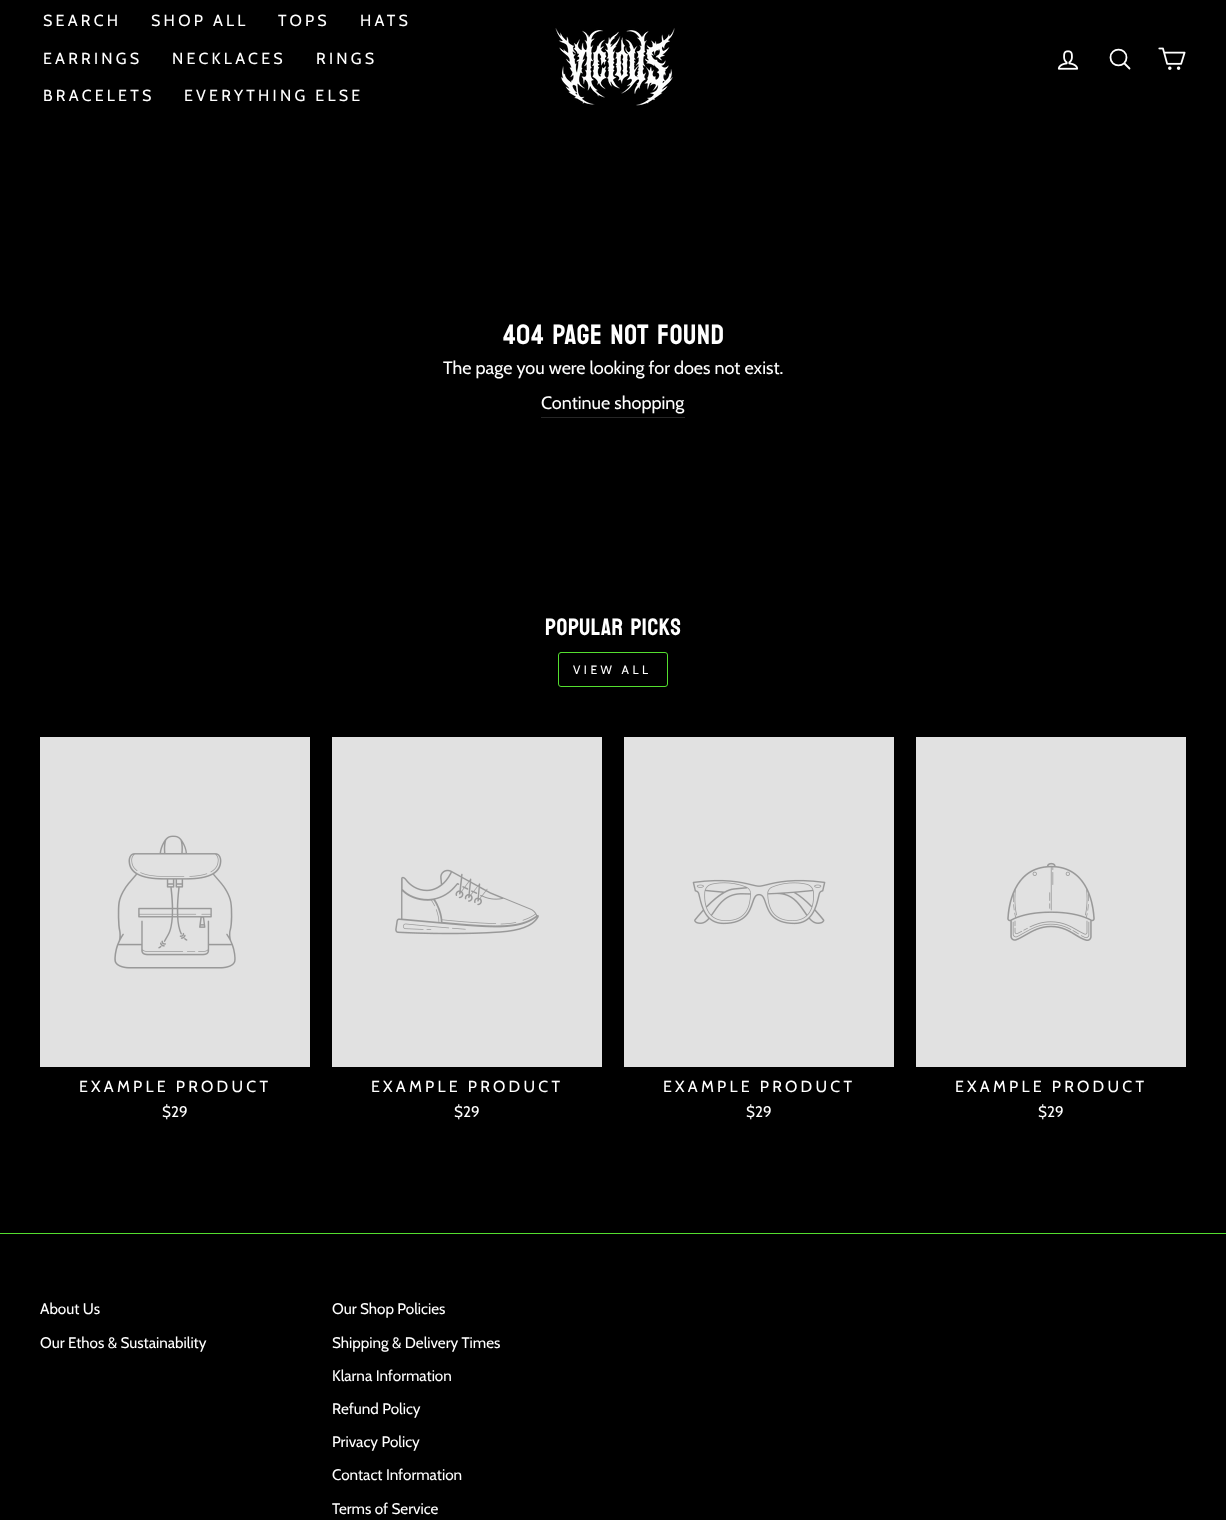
async function draw(canvas) {
  canvas.width = 1226;
  canvas.height = 1520;
  const ctx = canvas.getContext('2d');
  ctx.miterLimit = 4;
  ctx.fontKerning = 'normal';
  function label(s, x, y, font, color) {
    ctx.font = font;
    ctx.fillStyle = color;
    ctx.fillText(s, x, y);
  }
  function rect(x, y, w, h, color) {
    ctx.fillStyle = color;
    ctx.fillRect(x, y, w, h);
  }
  async function image(src, x, y, w, h) {
    const img = new Image();
    img.src = src;
    await img.decode();
    ctx.drawImage(img, x, y, w, h);
  }
  let path;

  rect(0, 0, 1226, 1520, '#000');
  ctx.letterSpacing = '3.25px';
  label('SEARCH', 43, 26, '16px Cabin', '#fff');
  label('SHOP ALL', 151, 26, '16px Cabin', '#fff');
  label('TOPS', 278, 26, '16px Cabin', '#fff');
  label('HATS', 360, 26, '16px Cabin', '#fff');
  label('EARRINGS', 43, 64, '16px Cabin', '#fff');
  label('NECKLACES', 172, 64, '16px Cabin', '#fff');
  label('RINGS', 316, 64, '16px Cabin', '#fff');
  label('BRACELETS', 43, 101, '16px Cabin', '#fff');
  label('EVERYTHING ELSE', 184, 101, '16px Cabin', '#fff');
  await image('assets/img1.png', 555, 28, 120, 78);
  await image('assets/img2.png', 1057, 50, 22, 20);
  path = new Path2D('M1126.5 57.5C1126.5 68 1110.5 68 1110.5 57.5C1110.5 47 1126.5 47 1126.5 57.5ZM1129.5 68.5L1124.5 63.5');
  ctx.strokeStyle = '#fff';
  ctx.lineWidth = 1.8;
  ctx.lineCap = 'round';
  ctx.lineJoin = 'round';
  ctx.stroke(path);
  await image('assets/img3.png', 1158, 47, 28, 23);
  ctx.letterSpacing = '0.75px';
  label('404 PAGE NOT FOUND', 503, 344, '28px Bayon', '#fff');
  ctx.letterSpacing = '0px';
  label('The page you were looking for does not exist.', 443, 374, '18px Cabin', '#fff');
  rect(541, 417, 144, 1, '#262626');
  label('Continue shopping', 541, 409, '18px Cabin', '#fff');
  ctx.letterSpacing = '0.6px';
  label('POPULAR PICKS', 545, 635, '23.75px Bayon', '#fff');
  ctx.beginPath();
  ctx.roundRect(558.5, 652.5, 109, 34, 2.5);
  ctx.strokeStyle = '#54de2f';
  ctx.lineWidth = 1;
  ctx.lineJoin = 'miter';
  ctx.stroke();
  ctx.letterSpacing = '3.5px';
  label('VIEW ALL', 573, 674, '12px Cabin', '#fff');
  rect(40, 737, 270, 330, '#e1e1e1');
  await image('assets/img4.png', 114, 835, 122, 134);
  ctx.letterSpacing = '3.25px';
  label('EXAMPLE PRODUCT', 79, 1092, '16px Cabin', '#fff');
  ctx.letterSpacing = '0px';
  label('$29', 162, 1117, '15.25px Cabin', '#fff');
  rect(332, 737, 270, 330, '#e1e1e1');
  await image('assets/img5.png', 395, 869, 144, 66);
  ctx.letterSpacing = '3.25px';
  label('EXAMPLE PRODUCT', 371, 1092, '16px Cabin', '#fff');
  ctx.letterSpacing = '0px';
  label('$29', 454, 1117, '15.25px Cabin', '#fff');
  rect(624, 737, 270, 330, '#e1e1e1');
  await image('assets/img6.png', 692, 879, 134, 46);
  ctx.letterSpacing = '3.25px';
  label('EXAMPLE PRODUCT', 663, 1092, '16px Cabin', '#fff');
  ctx.letterSpacing = '0px';
  label('$29', 746, 1117, '15.25px Cabin', '#fff');
  rect(916, 737, 270, 330, '#e1e1e1');
  await image('assets/img7.png', 1007, 862, 88, 79);
  ctx.letterSpacing = '3.25px';
  label('EXAMPLE PRODUCT', 955, 1092, '16px Cabin', '#fff');
  ctx.letterSpacing = '0px';
  label('$29', 1038, 1117, '15.25px Cabin', '#fff');
  rect(0, 1233, 1226, 1, '#54de2f');
  label('About Us', 40, 1314, '15.25px Cabin', '#fff');
  label('Our Ethos & Sustainability', 40, 1348, '15.25px Cabin', '#fff');
  label('Our Shop Policies', 332, 1314, '15.25px Cabin', '#fff');
  label('Shipping & Delivery Times', 332, 1348, '15.25px Cabin', '#fff');
  label('Klarna Information', 332, 1381, '15.25px Cabin', '#fff');
  label('Refund Policy', 332, 1414, '15.25px Cabin', '#fff');
  label('Privacy Policy', 332, 1447, '15.25px Cabin', '#fff');
  label('Contact Information', 332, 1480, '15.25px Cabin', '#fff');
  label('Terms of Service', 332, 1514, '15.25px Cabin', '#fff');
}

draw(document.querySelector('canvas'));
